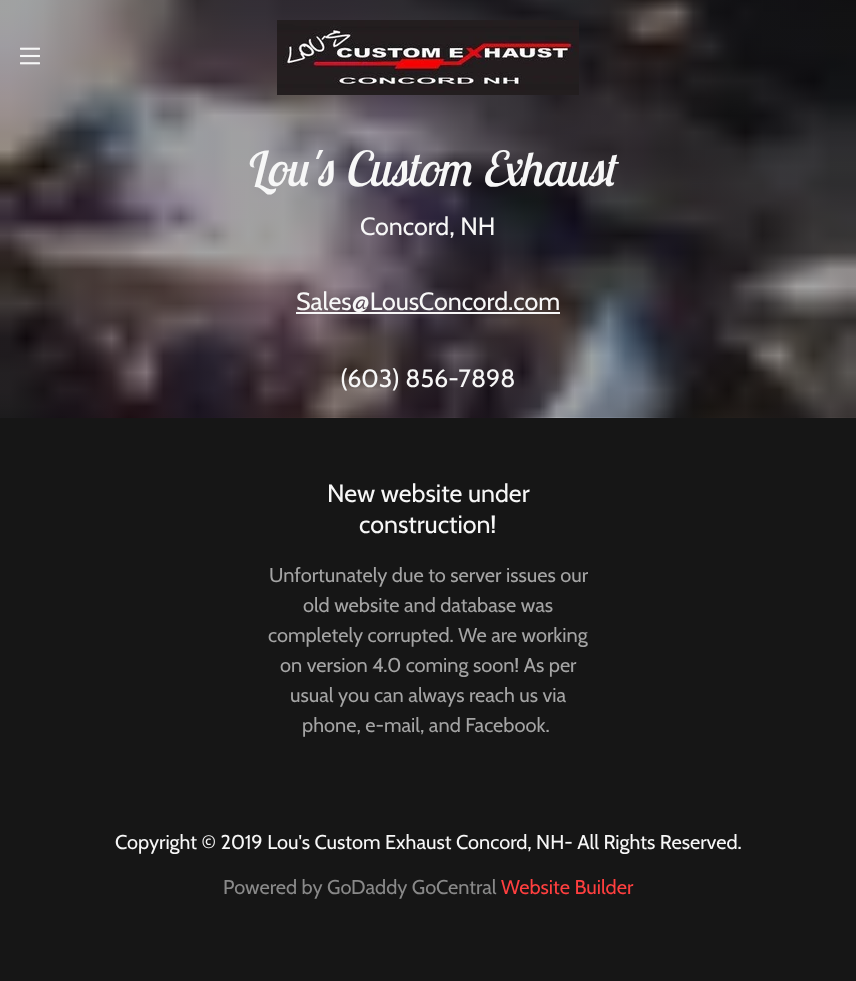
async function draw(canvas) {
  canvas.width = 856;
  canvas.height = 981;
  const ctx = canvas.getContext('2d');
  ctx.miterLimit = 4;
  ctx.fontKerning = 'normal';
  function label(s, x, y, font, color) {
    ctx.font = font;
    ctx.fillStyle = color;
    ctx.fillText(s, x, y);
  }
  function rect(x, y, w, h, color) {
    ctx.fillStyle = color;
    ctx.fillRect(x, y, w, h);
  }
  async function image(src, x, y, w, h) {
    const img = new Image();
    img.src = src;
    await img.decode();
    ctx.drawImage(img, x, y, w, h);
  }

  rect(0, 0, 856, 981, '#161616');
  await image('assets/img3.png', 0, 0, 856, 418);
  await image('assets/img1.png', 20, 47, 20, 18);
  await image('assets/img2.png', 277, 20, 302, 75);
  label('Lou\'s Custom Exhaust', 243, 186, 'italic 48px Lobster Two', '#f7f7f7');
  label('Concord, NH', 360, 235, '25px Cabin', '#f7f7f7');
  rect(296, 312, 264, 2, '#f7f7f7');
  label('Sales@LousConcord.com', 296, 310, '25px Cabin', '#f7f7f7');
  label('(603) 856-7898', 340, 387, '25px Cabin', '#f7f7f7');
  label('New website under', 327, 502, '25px Cabin', '#f7f7f7');
  label('construction!', 359, 533, '25px Cabin', '#f7f7f7');
  label('Unfortunately due to server issues our', 269, 582, '20px Cabin', '#a4a4a4');
  label('old website and database was', 303, 612, '20px Cabin', '#a4a4a4');
  label('completely corrupted. We are working', 268, 642, '20px Cabin', '#a4a4a4');
  label('on version 4.0 coming soon! As per', 280, 672, '20px Cabin', '#a4a4a4');
  label('usual you can always reach us via', 290, 702, '20px Cabin', '#a4a4a4');
  label('phone, e-mail, and Facebook.', 302, 732, '20px Cabin', '#a4a4a4');
  label('Copyright © 2019 Lou\'s Custom Exhaust Concord, NH- All Rights Reserved.', 115, 849, '20px Cabin', '#f7f7f7');
  label('Powered by GoDaddy GoCentral', 223, 894, '20px Cabin', '#898989');
  label('Website Builder', 501, 894, '20px Cabin', '#ff3f3f');
}

draw(document.querySelector('canvas'));
